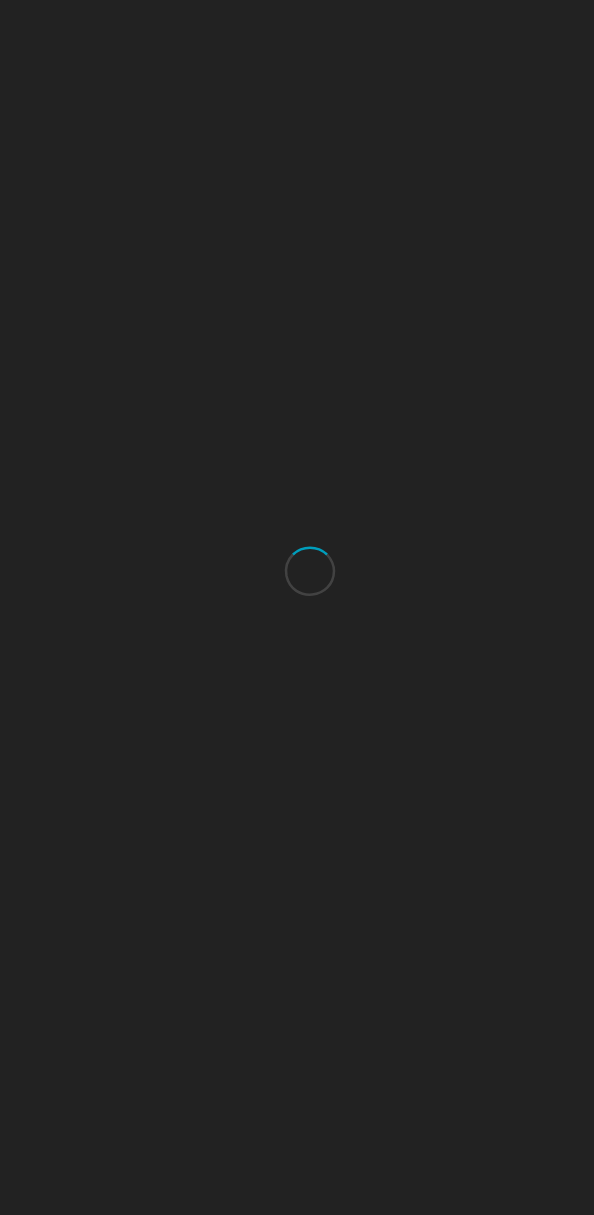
async function draw(canvas) {
  canvas.width = 594;
  canvas.height = 1215;
  const ctx = canvas.getContext('2d');
  ctx.miterLimit = 4;
  ctx.fontKerning = 'normal';
  function rect(x, y, w, h, color) {
    ctx.fillStyle = color;
    ctx.fillRect(x, y, w, h);
  }
  let path;

  rect(0, 0, 594, 1215, '#222');
  path = new Path2D('M293 554.5C302.5 545.5 317.5 545.5 327 554.5');
  ctx.strokeStyle = '#009ebc';
  ctx.lineWidth = 2.5;
  ctx.stroke(path);
  path = new Path2D('M327 554.5C331 559 334 565 334 571C333.5 599.5 292.5 603.5 286.5 576C285 568 287.5 560 293 554.5');
  ctx.strokeStyle = '#ffffff26';
  ctx.stroke(path);
}

draw(document.querySelector('canvas'));
